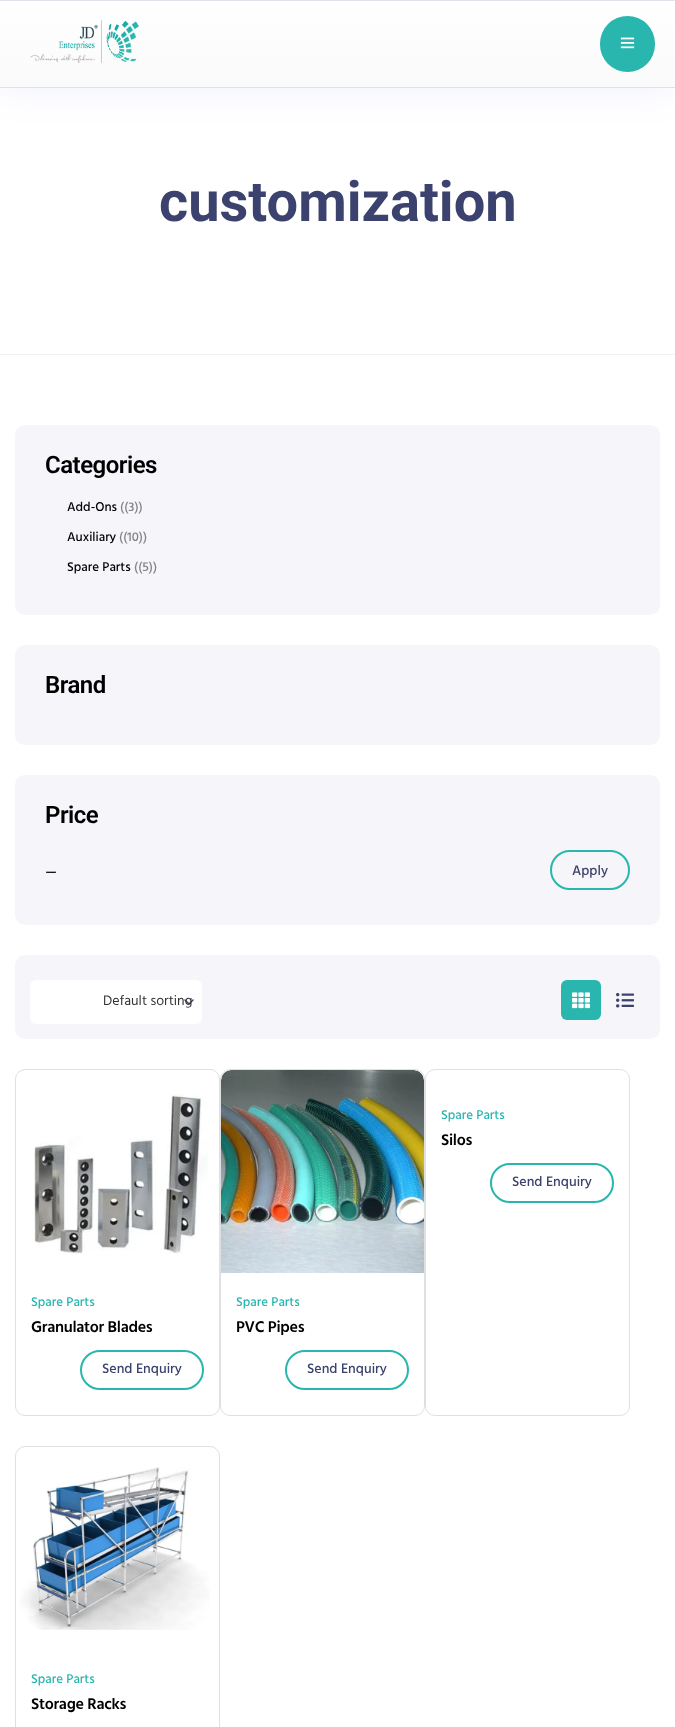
async function draw(canvas) {
  canvas.width = 675;
  canvas.height = 1727;
  const ctx = canvas.getContext('2d');
  ctx.miterLimit = 4;
  ctx.fontKerning = 'normal';
  function label(s, x, y, font, color) {
    ctx.font = font;
    ctx.fillStyle = color;
    ctx.fillText(s, x, y);
  }
  function rect(x, y, w, h, color) {
    ctx.fillStyle = color;
    ctx.fillRect(x, y, w, h);
  }
  function roundedRect(x, y, w, h, r, color) {
    ctx.fillStyle = color;
    ctx.beginPath();
    ctx.roundRect(x, y, w, h, r);
    ctx.fill();
  }
  async function image(src, x, y, w, h) {
    const img = new Image();
    img.src = src;
    await img.decode();
    ctx.drawImage(img, x, y, w, h);
  }
  let gradient, path;

  rect(0, 0, 675, 1727, '#fff');
  ctx.fillStyle = '#566dfb1a';
  ctx.filter = 'blur(18.5px)';
  ctx.beginPath();
  ctx.rect(0, 0, 675, 88);
  ctx.fill();
  ctx.filter = 'none';
  gradient = ctx.createLinearGradient(338, 1, 338, 87);
  gradient.addColorStop(0, '#fff');
  gradient.addColorStop(1, '#fafafa');
  ctx.fillStyle = gradient;
  ctx.fillRect(0, 1, 675, 86);
  rect(0, 0, 675, 1, '#dfe2ed');
  rect(0, 87, 675, 1, '#dfe2ed');
  await image('assets/img1.png', 30, 20, 109, 43);
  roundedRect(600, 16, 55, 56, 27.5, '#28b6ae');
  await image('assets/img2.png', 620, 37, 15, 12);
  rect(0, 354, 675, 1, '#f2f2f2');
  label('customization', 159, 221, 'bold 56px Roboto', '#3a426d');
  roundedRect(15, 425, 645, 190, 10, '#f5f5fa');
  ctx.letterSpacing = '-0.5px';
  label('Categories', 45, 473, '600 24px Roboto', '#000');
  ctx.letterSpacing = '0px';
  label('Add-Ons', 67, 511, '500 13px Hind', '#000');
  label('((3))', 120, 511, '500 13px Hind', '#828282');
  label('Auxiliary', 67, 541, '500 13px Hind', '#000');
  label('((10))', 119, 541, '500 13px Hind', '#828282');
  label('Spare Parts', 67, 571, '500 13px Hind', '#000');
  label('((5))', 134, 571, '500 13px Hind', '#828282');
  roundedRect(15, 645, 645, 100, 10, '#f5f5fa');
  ctx.letterSpacing = '-0.5px';
  label('Brand', 45, 693, '600 24px Roboto', '#000');
  roundedRect(15, 775, 645, 150, 10, '#f5f5fa');
  label('Price', 45, 823, '600 24px Roboto', '#000');
  ctx.letterSpacing = '0px';
  label('—', 45, 877, '500 13px Poppins', '#000');
  ctx.beginPath();
  ctx.roundRect(551, 851, 78, 38, 19);
  ctx.strokeStyle = '#28b6ae';
  ctx.lineWidth = 2;
  ctx.stroke();
  label('Apply', 572, 875, '500 14px Hind', '#3a426d');
  roundedRect(15, 955, 645, 84, 10, '#f5f5fa');
  roundedRect(30, 980, 172, 44, 6, '#fff');
  path = new Path2D('M193 1000L189 1004L185 1000');
  ctx.strokeStyle = '#3a426d';
  ctx.lineWidth = 1.5;
  ctx.lineCap = 'round';
  ctx.lineJoin = 'round';
  ctx.stroke(path);
  label('Default sorting', 103, 1005, '14px Hind', '#333');
  roundedRect(561, 980, 40, 40, 6, '#28b6ae');
  await image('assets/img3.png', 572, 992, 18, 17);
  await image('assets/img4.png', 616, 993, 18, 15);
  ctx.beginPath();
  ctx.roundRect(425.5, 1069.5, 204, 346, 9.5);
  ctx.strokeStyle = '#e0e0e0';
  ctx.lineWidth = 1;
  ctx.lineJoin = 'miter';
  ctx.stroke();
  label('Spare Parts', 441, 1119, '500 13px Hind', '#28b6ae');
  ctx.letterSpacing = '-0.3px';
  label('Silos', 441, 1145, '600 16px Hind', '#000');
  ctx.beginPath();
  ctx.roundRect(491, 1164, 122, 38, 19);
  ctx.strokeStyle = '#28b6ae';
  ctx.lineWidth = 2;
  ctx.stroke();
  ctx.letterSpacing = '0px';
  label('Send Enquiry', 512, 1186, '500 14px Hind', '#3a426d');
  ctx.beginPath();
  ctx.roundRect(15.5, 1069.5, 204, 346, 9.5);
  ctx.strokeStyle = '#e0e0e0';
  ctx.lineWidth = 1;
  ctx.stroke();
  await image('assets/img5.png', 34, 1094, 174, 160);
  label('Spare Parts', 31, 1306, '500 13px Hind', '#28b6ae');
  ctx.letterSpacing = '-0.3px';
  label('Granulator Blades', 31, 1332, '600 16px Hind', '#000');
  ctx.beginPath();
  ctx.roundRect(81, 1351, 122, 38, 19);
  ctx.strokeStyle = '#28b6ae';
  ctx.lineWidth = 2;
  ctx.stroke();
  ctx.letterSpacing = '0px';
  label('Send Enquiry', 102, 1373, '500 14px Hind', '#3a426d');
  ctx.beginPath();
  ctx.roundRect(220.5, 1069.5, 204, 346, 9.5);
  ctx.strokeStyle = '#e0e0e0';
  ctx.lineWidth = 1;
  ctx.stroke();
  await image('assets/img6.png', 221, 1070, 203, 203);
  label('Spare Parts', 236, 1306, '500 13px Hind', '#28b6ae');
  ctx.letterSpacing = '-0.3px';
  label('PVC Pipes', 236, 1332, '600 16px Hind', '#000');
  ctx.beginPath();
  ctx.roundRect(286, 1351, 122, 38, 19);
  ctx.strokeStyle = '#28b6ae';
  ctx.lineWidth = 2;
  ctx.stroke();
  ctx.letterSpacing = '0px';
  label('Send Enquiry', 307, 1373, '500 14px Hind', '#3a426d');
  ctx.beginPath();
  ctx.roundRect(15.5, 1446.5, 204, 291, 9.5);
  ctx.strokeStyle = '#e0e0e0';
  ctx.lineWidth = 1;
  ctx.stroke();
  await image('assets/img7.png', 19, 1467, 191, 163);
  label('Spare Parts', 31, 1683, '500 13px Hind', '#28b6ae');
  ctx.letterSpacing = '-0.3px';
  label('Storage Racks', 31, 1709, '600 16px Hind', '#000');
}

draw(document.querySelector('canvas'));
